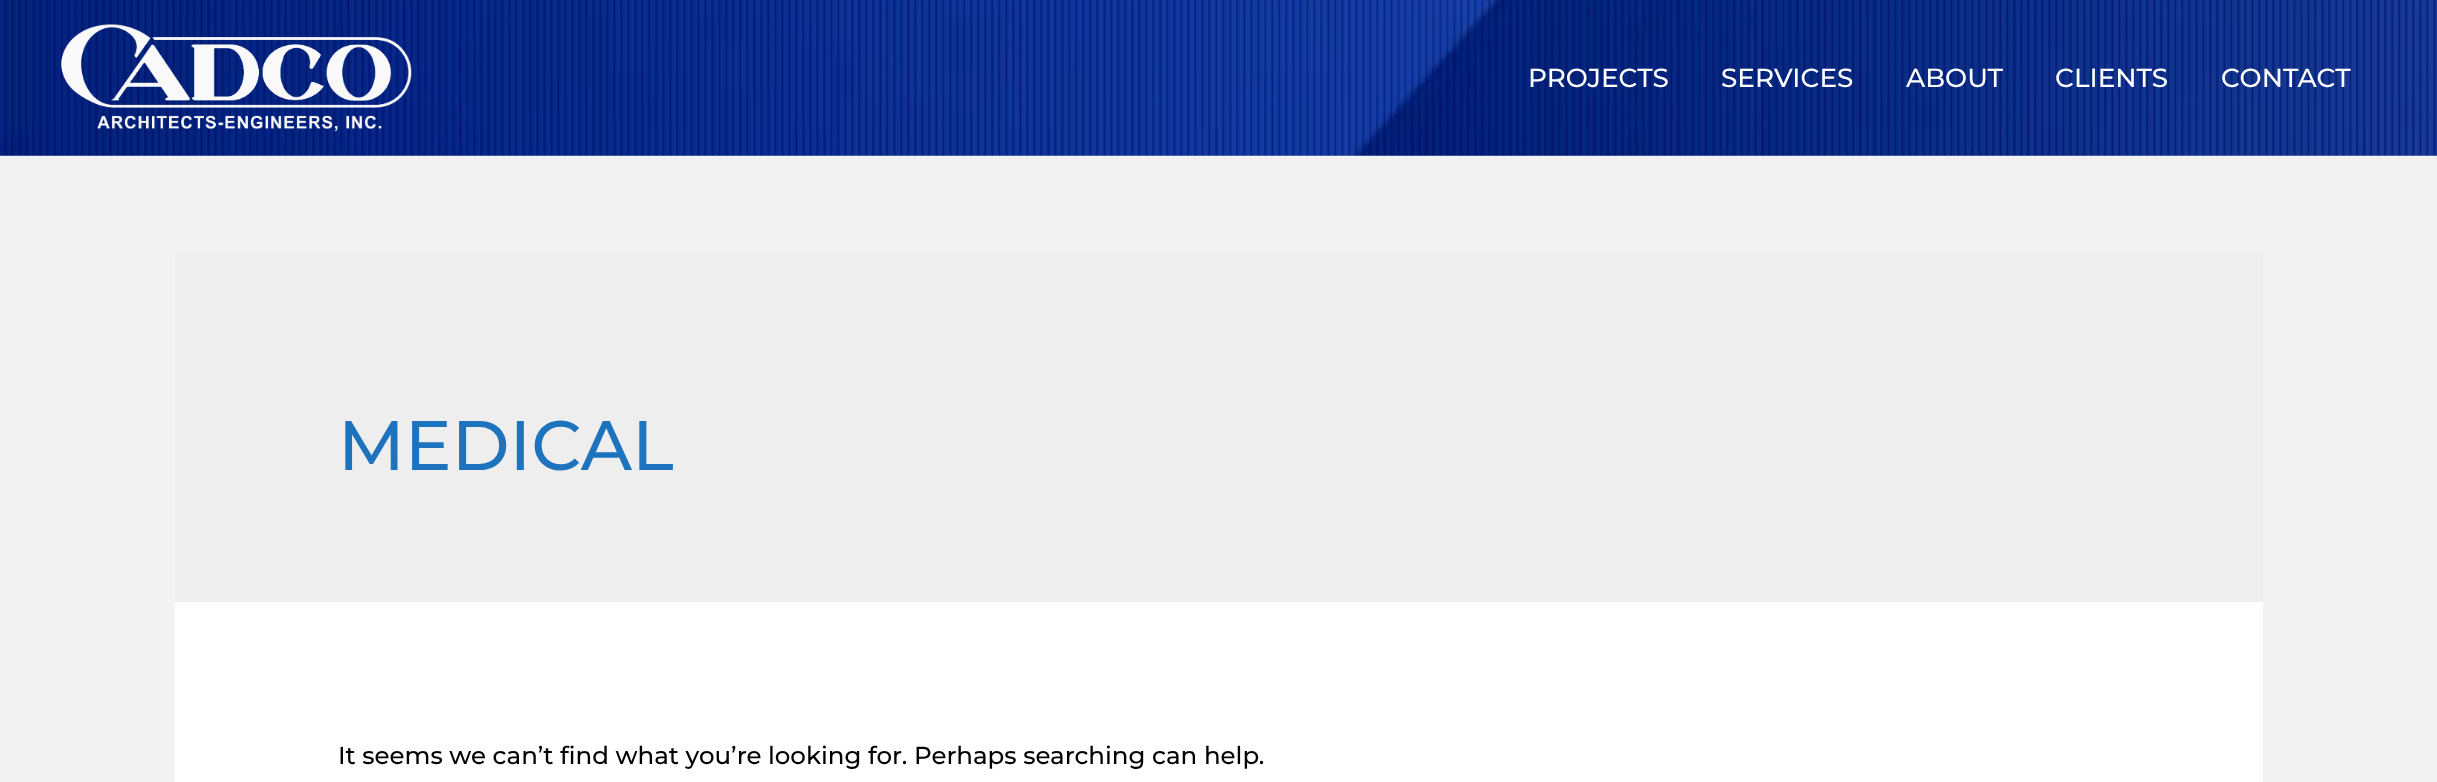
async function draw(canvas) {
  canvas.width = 2437;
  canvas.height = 782;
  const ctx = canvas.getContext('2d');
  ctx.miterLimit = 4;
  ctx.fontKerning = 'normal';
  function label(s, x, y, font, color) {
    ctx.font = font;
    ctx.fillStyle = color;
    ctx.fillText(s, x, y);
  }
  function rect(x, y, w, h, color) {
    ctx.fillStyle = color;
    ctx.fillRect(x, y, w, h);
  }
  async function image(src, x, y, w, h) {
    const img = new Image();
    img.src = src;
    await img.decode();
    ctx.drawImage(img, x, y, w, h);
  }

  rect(0, 0, 2437, 782, '#f2f2f2');
  await image('assets/img1.png', 0, 0, 2437, 156);
  await image('assets/img2.png', 61, 24, 351, 108);
  label('PROJECTS', 1528, 87, '100 26.25px Montserrat', '#fff');
  label('SERVICES', 1721, 87, '100 26.25px Montserrat', '#fff');
  label('ABOUT', 1906, 87, '100 26.25px Montserrat', '#fff');
  label('CLIENTS', 2055, 87, '100 26.25px Montserrat', '#fff');
  label('CONTACT', 2221, 87, '100 26.25px Montserrat', '#fff');
  rect(175, 254, 2088, 348, '#eee');
  label('MEDICAL', 338, 470, '100 70px Montserrat', '#1e73be');
  rect(175, 602, 2088, 180, '#fff');
  label('It seems we can’t find what you’re looking for. Perhaps searching can help.', 338, 764, '100 24.5px Montserrat', '#000');
}

draw(document.querySelector('canvas'));
